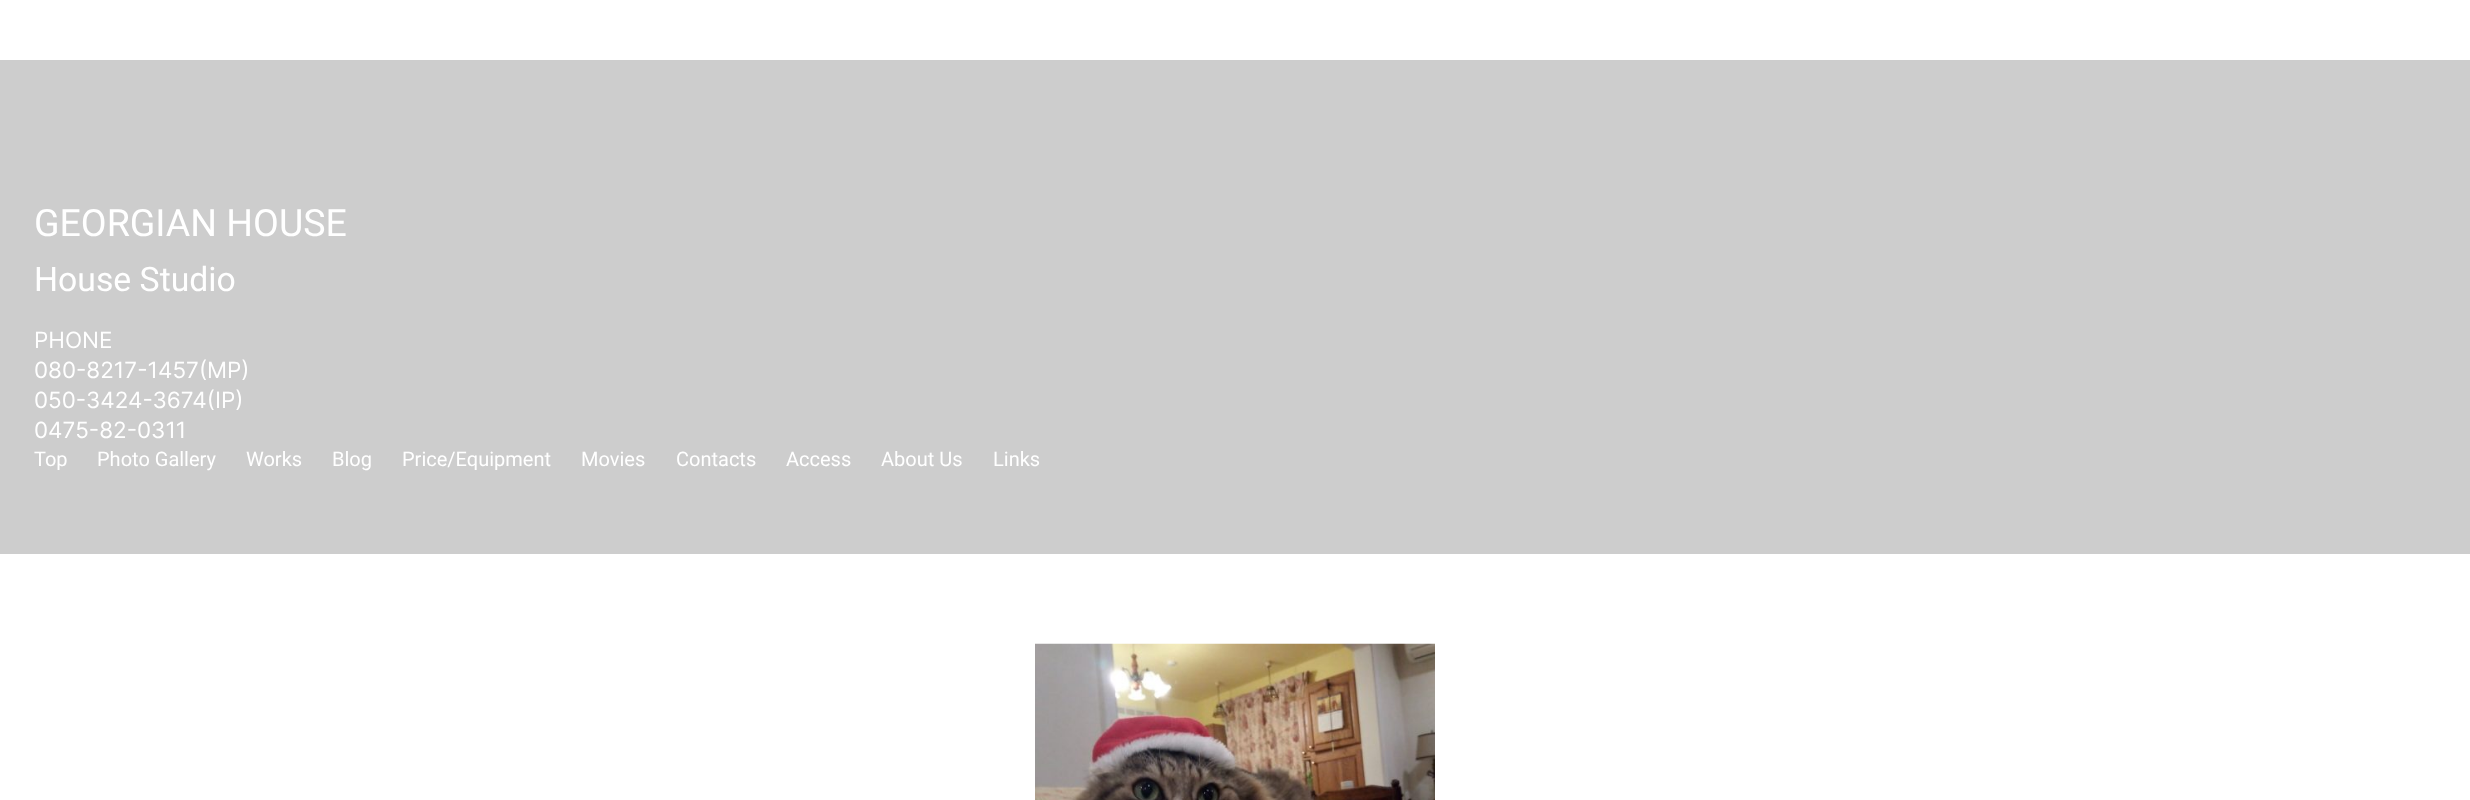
async function draw(canvas) {
  canvas.width = 2470;
  canvas.height = 800;
  const ctx = canvas.getContext('2d');
  ctx.miterLimit = 4;
  ctx.fontKerning = 'normal';
  function label(s, x, y, font, color) {
    ctx.font = font;
    ctx.fillStyle = color;
    ctx.fillText(s, x, y);
  }
  function rect(x, y, w, h, color) {
    ctx.fillStyle = color;
    ctx.fillRect(x, y, w, h);
  }
  async function image(src, x, y, w, h) {
    const img = new Image();
    img.src = src;
    await img.decode();
    ctx.drawImage(img, x, y, w, h);
  }

  rect(0, 0, 2470, 800, '#fff');
  rect(0, 60, 2470, 494, '#cdcdcd');
  label('GEORGIAN HOUSE', 34, 236, '37.5px Roboto', '#fff');
  label('House Studio', 34, 291, '33.75px Roboto', '#fff');
  label('PHONE', 34, 348, '22.5px Inter', '#fff');
  label('080-8217-1457(MP)', 34, 378, '22.5px Inter', '#fff');
  label('050-3424-3674(IP)', 34, 408, '22.5px Inter', '#fff');
  label('0475-82-0311', 34, 438, '22.5px Inter', '#fff');
  label('Top', 34, 466, '20px Roboto', '#fff');
  label('Photo Gallery', 97, 466, '20px Roboto', '#fff');
  label('Works', 246, 466, '20px Roboto', '#fff');
  label('Blog', 332, 466, '20px Roboto', '#fff');
  label('Price/Equipment', 402, 466, '20px Roboto', '#fff');
  label('Movies', 581, 466, '20px Roboto', '#fff');
  label('Contacts', 676, 466, '20px Roboto', '#fff');
  label('Access', 786, 466, '20px Roboto', '#fff');
  label('About Us', 881, 466, '20px Roboto', '#fff');
  label('Links', 993, 466, '20px Roboto', '#fff');
  await image('assets/img1.png', 1035, 643, 400, 157);
}

draw(document.querySelector('canvas'));
